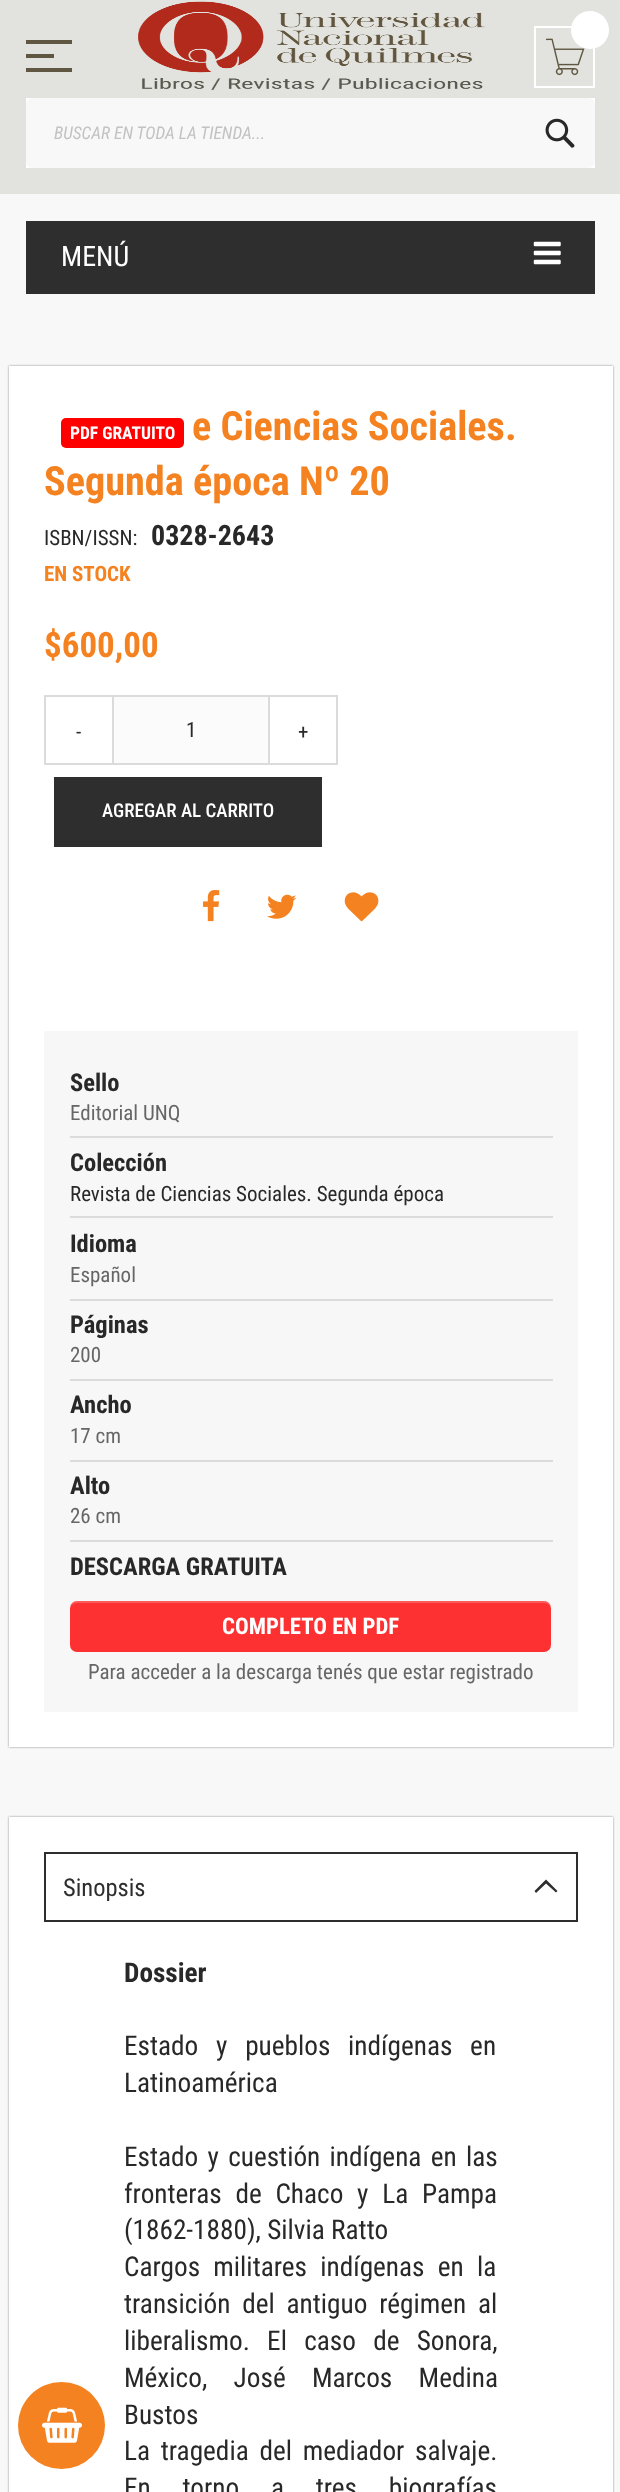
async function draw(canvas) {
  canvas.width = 620;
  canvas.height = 2492;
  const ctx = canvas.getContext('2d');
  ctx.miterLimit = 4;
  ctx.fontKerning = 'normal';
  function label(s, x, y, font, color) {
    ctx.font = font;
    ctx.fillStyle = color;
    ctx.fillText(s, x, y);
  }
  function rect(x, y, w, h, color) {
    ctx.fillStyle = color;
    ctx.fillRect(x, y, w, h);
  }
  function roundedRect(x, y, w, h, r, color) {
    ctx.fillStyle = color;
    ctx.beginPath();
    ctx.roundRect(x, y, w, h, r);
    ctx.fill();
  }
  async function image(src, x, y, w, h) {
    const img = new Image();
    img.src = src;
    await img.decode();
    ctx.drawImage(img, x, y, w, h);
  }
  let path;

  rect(0, 0, 620, 2492, '#f8f8f8');
  rect(0, 0, 620, 194, '#e2e3de');
  rect(26, 40, 46, 4, '#5f5742');
  rect(26, 68, 46, 4, '#5f5742');
  rect(26, 54, 28, 4, '#5f5742');
  await image('assets/img1.png', 138, 1, 347, 89);
  ctx.strokeStyle = '#fff';
  ctx.lineWidth = 2;
  ctx.strokeRect(535, 27, 59, 60);
  await image('assets/img2.png', 546, 38, 39, 38);
  ctx.fillStyle = '#fff';
  ctx.beginPath();
  ctx.arc(590, 30, 19, 0, 2 * Math.PI);
  ctx.fill();
  rect(26, 98, 569, 70, '#fff');
  roundedRect(26, 98, 569, 70, 7, '#f8f8f8');
  label('BUSCAR EN TODA LA TIENDA...', 54, 139, 'italic 17.5px Roboto Condensed', '#c2c2c2');
  await image('assets/img3.png', 545, 118, 30, 30);
  rect(26, 221, 569, 73, '#2e2e2e');
  label('MENÚ', 61, 266, '28px Roboto Condensed', '#fff');
  await image('assets/img4.png', 533, 241, 28, 24);
  ctx.fillStyle = '#8c8686';
  ctx.filter = 'blur(1px)';
  ctx.beginPath();
  ctx.rect(9, 366, 604, 1381);
  ctx.fill();
  ctx.filter = 'none';
  rect(9, 366, 604, 1381, '#fff');
  label('e Ciencias Sociales.', 192, 440, 'bold 40.25px Roboto Condensed', '#f58220');
  label('Segunda época Nº 20', 44, 495, 'bold 40.25px Roboto Condensed', '#f58220');
  label('ISBN/ISSN:', 44, 545, '21px Roboto Condensed', '#282828');
  label('0328-2643', 151, 545, 'bold 28px Roboto Condensed', '#282828');
  label('EN STOCK', 44, 581, 'bold 21px Roboto Condensed', '#f58220');
  label('$600,00', 44, 657, 'bold 35px Roboto Condensed', '#f58220');
  ctx.fillStyle = '#fbfbfb';
  ctx.beginPath();
  ctx.rect(113, 696, 156, 68);
  ctx.fill();
  ctx.strokeStyle = '#dbdbdb';
  ctx.stroke();
  ctx.strokeRect(45, 696, 68, 68);
  label('-', 76, 739, '21px Roboto Condensed', '#282828');
  label('1', 186, 737, '21px Roboto Condensed', '#282828');
  ctx.strokeRect(269, 696, 68, 68);
  label('+', 298, 739, '21px Roboto Condensed', '#282828');
  rect(54, 777, 268, 70, '#2e2e2e');
  label('AGREGAR AL CARRITO', 102, 817, '500 19px Roboto Condensed', '#fff');
  await image('assets/img5.png', 203, 890, 17, 32);
  await image('assets/img6.png', 267, 894, 30, 25);
  await image('assets/img7.png', 344, 892, 35, 30);
  roundedRect(61, 418, 123, 30, 5, '#f00');
  label('PDF GRATUITO', 70, 439, 'bold 17.5px Roboto Condensed', '#fff');
  rect(44, 1031, 534, 681, '#f7f7f7');
  label('Sello', 70, 1091, 'bold 24.5px Roboto Condensed', '#282828');
  rect(70, 1136, 483, 2, '#dbdbdb');
  label('Editorial UNQ', 70, 1120, '21px Roboto Condensed', '#666');
  label('Colección', 70, 1171, 'bold 24.5px Roboto Condensed', '#282828');
  rect(70, 1216, 483, 2, '#dbdbdb');
  label('Revista de Ciencias Sociales. Segunda época', 70, 1201, '21px Roboto Condensed', '#282828');
  label('Idioma', 70, 1252, 'bold 24.5px Roboto Condensed', '#282828');
  rect(70, 1299, 483, 2, '#dbdbdb');
  label('Español', 70, 1282, '21px Roboto Condensed', '#666');
  label('Páginas', 70, 1333, 'bold 24.5px Roboto Condensed', '#282828');
  rect(70, 1379, 483, 2, '#dbdbdb');
  label('200', 70, 1362, '21px Roboto Condensed', '#666');
  label('Ancho', 70, 1413, 'bold 24.5px Roboto Condensed', '#282828');
  rect(70, 1460, 483, 2, '#dbdbdb');
  label('17 cm', 70, 1443, '21px Roboto Condensed', '#666');
  label('Alto', 70, 1494, 'bold 24.5px Roboto Condensed', '#282828');
  rect(70, 1540, 483, 2, '#dbdbdb');
  label('26 cm', 70, 1523, '21px Roboto Condensed', '#666');
  label('DESCARGA GRATUITA', 70, 1575, 'bold 24.5px Roboto Condensed', '#282828');
  roundedRect(70, 1601, 481, 51, 7, '#fd3131');
  ctx.fillStyle = '#fdfdfd33';
  path = new Path2D('M77 1603H544C548 1603 551 1606 551 1610V1608C551 1604 548 1601 544 1601H77C73 1601 70 1604 70 1608V1610C70 1606 73 1603 77 1603Z');
  ctx.fill(path);
  label('COMPLETO EN PDF', 222, 1634, 'bold 22.75px Roboto Condensed', '#fff');
  label('Para acceder a la descarga tenés que estar registrado', 88, 1679, '21px Roboto Condensed', '#666');
  ctx.fillStyle = '#8c8686';
  ctx.filter = 'blur(1px)';
  ctx.beginPath();
  ctx.rect(9, 1817, 604, 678);
  ctx.fill();
  ctx.filter = 'none';
  rect(9, 1817, 604, 675, '#fff');
  ctx.strokeStyle = '#2e2e2e';
  ctx.strokeRect(45, 1853, 532, 68);
  label('Sinopsis', 63, 1896, '24.5px Roboto Condensed', '#2e2e2e');
  path = new Path2D('M546 1883.5L556 1892.5L557.5 1891L546 1879.5L534.5 1891L536 1893Z');
  ctx.fill(path);
  label('Dossier', 124, 1982, 'bold 27.25px Roboto Condensed', '#282828');
  ctx.wordSpacing = '11.5px';
  label('Estado y pueblos indígenas en', 124, 2055, '27.25px Roboto Condensed', '#282828');
  ctx.wordSpacing = '0px';
  label('Latinoamérica', 124, 2092, '27.25px Roboto Condensed', '#282828');
  ctx.wordSpacing = '3px';
  label('Estado y cuestión indígena en las', 124, 2166, '27.25px Roboto Condensed', '#282828');
  ctx.wordSpacing = '7.5px';
  label('fronteras de Chaco y La Pampa', 124, 2203, '27.25px Roboto Condensed', '#282828');
  ctx.wordSpacing = '0px';
  label('(1862-1880), Silvia Ratto', 124, 2239, '27.25px Roboto Condensed', '#282828');
  ctx.wordSpacing = '7px';
  label('Cargos militares indígenas en la', 124, 2276, '27.25px Roboto Condensed', '#282828');
  ctx.wordSpacing = '5.5px';
  label('transición del antiguo régimen al', 124, 2313, '27.25px Roboto Condensed', '#282828');
  ctx.wordSpacing = '11px';
  label('liberalismo. El caso de Sonora,', 124, 2350, '27.25px Roboto Condensed', '#282828');
  ctx.wordSpacing = '0px';
  label('México', 124, 2387, '27.25px Roboto Condensed', '#282828');
  ctx.wordSpacing = '20px';
  label(', José Marcos Medina', 202, 2387, '27.25px Roboto Condensed', '#282828');
  ctx.wordSpacing = '0px';
  label('Bustos', 124, 2424, '27.25px Roboto Condensed', '#282828');
  ctx.wordSpacing = '4.5px';
  label('La tragedia del mediador salvaje.', 124, 2460, '27.25px Roboto Condensed', '#282828');
  ctx.wordSpacing = '25.5px';
  label('En torno a tres biografías', 124, 2497, '27.25px Roboto Condensed', '#282828');
  ctx.fillStyle = '#f58220';
  ctx.beginPath();
  ctx.arc(61.5, 2425.5, 43.5, 0, 2 * Math.PI);
  ctx.fill();
  await image('assets/img8.png', 42, 2407, 40, 36);
}

draw(document.querySelector('canvas'));
